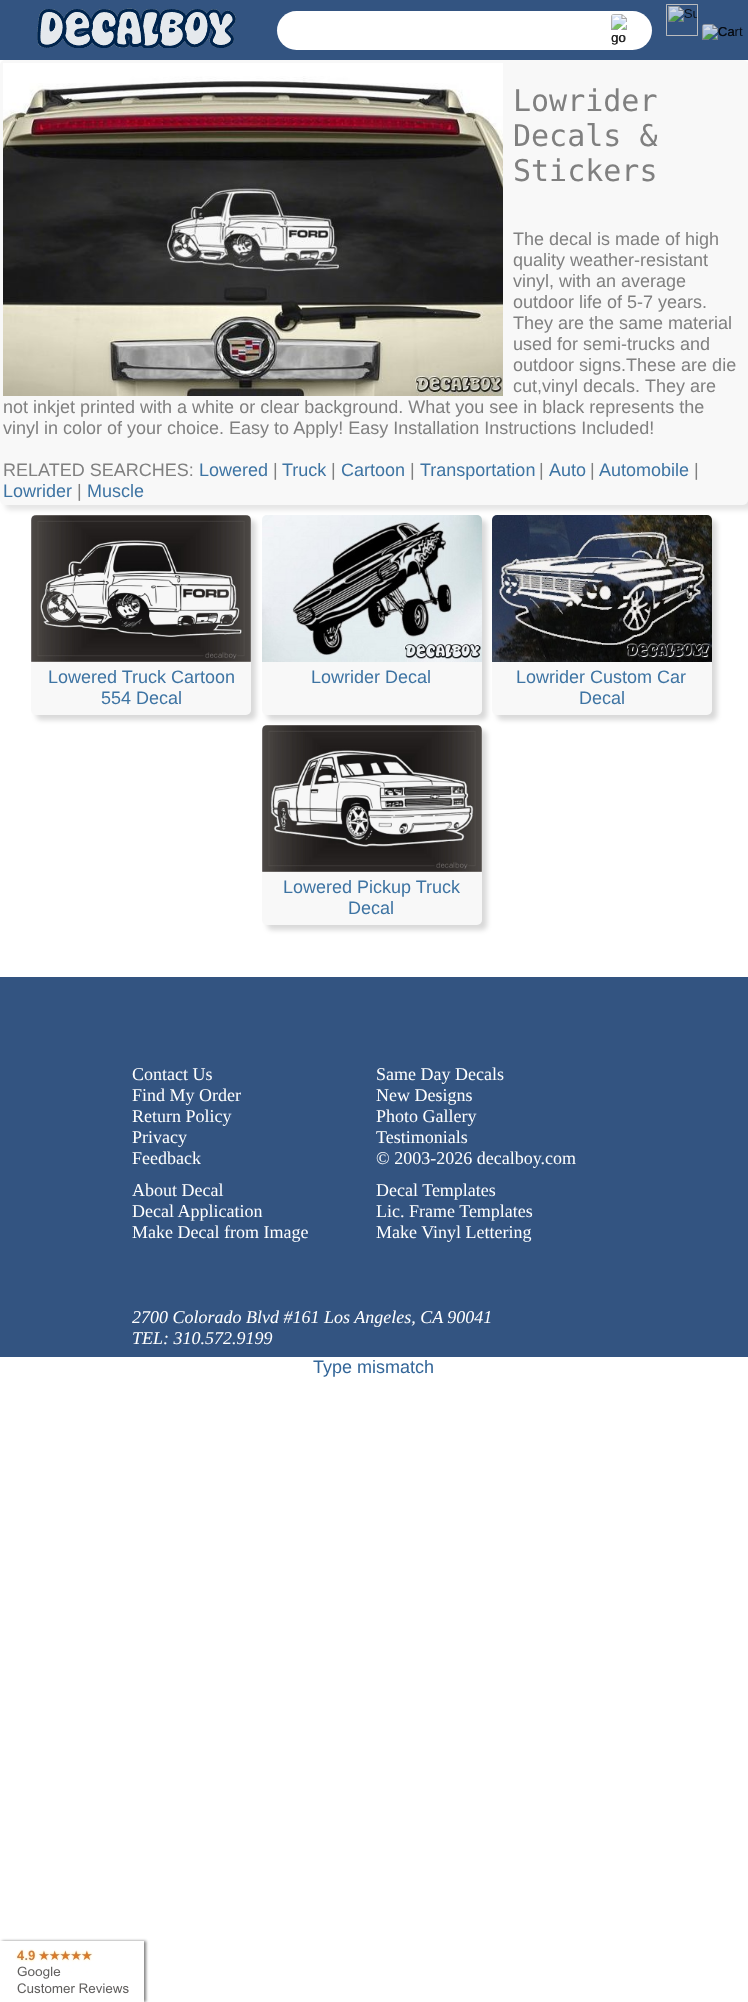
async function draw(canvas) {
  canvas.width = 748;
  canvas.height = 2002;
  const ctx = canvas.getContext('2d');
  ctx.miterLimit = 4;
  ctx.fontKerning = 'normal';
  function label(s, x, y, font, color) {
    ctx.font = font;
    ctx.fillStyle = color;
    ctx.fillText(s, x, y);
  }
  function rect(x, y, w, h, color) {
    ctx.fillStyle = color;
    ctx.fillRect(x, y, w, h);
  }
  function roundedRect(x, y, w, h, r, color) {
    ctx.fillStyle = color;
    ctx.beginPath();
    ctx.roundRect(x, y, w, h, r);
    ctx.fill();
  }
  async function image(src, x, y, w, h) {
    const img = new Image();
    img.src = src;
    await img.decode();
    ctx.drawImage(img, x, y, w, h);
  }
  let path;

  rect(0, 0, 748, 2002, '#fff');
  rect(0, 0, 748, 60, '#335481');
  await image('assets/img1.png', 37, 8, 199, 40);
  await image('assets/img2.png', 666, 4, 32, 32);
  ctx.strokeStyle = '#c0c0c0cc';
  ctx.strokeRect(666.5, 4.5, 31, 31);
  await image('assets/img3.png', 702, 24, 32, 16);
  label('Cart', 718, 36, '13px Liberation Sans', '#080c13');
  roundedRect(277, 11, 375, 39, 19.5, '#fff');
  await image('assets/img4.png', 611, 14, 16, 30);
  label('go', 611, 42, '13px Liberation Sans', '#202020');
  ctx.fillStyle = '#0000001a';
  ctx.filter = 'blur(2.5px)';
  ctx.beginPath();
  ctx.roundRect(5, 65, 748, 445, 5);
  ctx.fill();
  ctx.filter = 'none';
  roundedRect(0, 60, 748, 445, 5, '#f8f8f8');
  await image('assets/img5.png', 3, 63, 500, 333);
  label('Lowrider', 513, 111, '30px DejaVu Sans Mono', '#808080');
  label('Decals &', 513, 146, '30px DejaVu Sans Mono', '#808080');
  label('Stickers', 513, 181, '30px DejaVu Sans Mono', '#808080');
  label('The decal is made of high', 513, 245, '18px Liberation Sans', '#808080');
  label('quality weather-resistant', 513, 266, '18px Liberation Sans', '#808080');
  label('vinyl, with an average', 513, 287, '18px Liberation Sans', '#808080');
  label('outdoor life of 5-7 years.', 513, 308, '18px Liberation Sans', '#808080');
  label('They are the same material', 513, 329, '18px Liberation Sans', '#808080');
  label('used for semi-trucks and', 513, 350, '18px Liberation Sans', '#808080');
  label('outdoor signs.These are die', 513, 371, '18px Liberation Sans', '#808080');
  label('cut,vinyl decals.', 513, 392, '18px Liberation Sans', '#808080');
  label('They are', 645, 392, '18px Liberation Sans', '#808080');
  label('not inkjet printed with a white or clear background. What you see in black represents the', 3, 413, '18px Liberation Sans', '#808080');
  label('vinyl in color of your choice. Easy to Apply! Easy Installation Instructions Included!', 3, 434, '18px Liberation Sans', '#808080');
  label('RELATED SEARCHES:', 3, 476, '18px Liberation Sans', '#808080');
  label('Lowered', 199, 476, '18px Liberation Sans', '#3e74a3');
  label('|', 273, 476, '18px Liberation Sans', '#808080');
  label('Truck', 282, 476, '18px Liberation Sans', '#3e74a3');
  label('|', 331, 476, '18px Liberation Sans', '#808080');
  label('Cartoon', 341, 476, '18px Liberation Sans', '#3e74a3');
  label('|', 410, 476, '18px Liberation Sans', '#808080');
  label('Transportation', 420, 476, '18px Liberation Sans', '#3e74a3');
  label('|', 539, 476, '18px Liberation Sans', '#808080');
  label('Auto', 549, 476, '18px Liberation Sans', '#3e74a3');
  label('|', 590, 476, '18px Liberation Sans', '#808080');
  label('Automobile', 599, 476, '18px Liberation Sans', '#3e74a3');
  label('|', 694, 476, '18px Liberation Sans', '#808080');
  label('Lowrider', 3, 497, '18px Liberation Sans', '#3e74a3');
  label('|', 77, 497, '18px Liberation Sans', '#808080');
  label('Muscle', 87, 497, '18px Liberation Sans', '#3e74a3');
  ctx.fillStyle = '#00000026';
  ctx.filter = 'blur(2.5px)';
  ctx.beginPath();
  ctx.roundRect(36, 520, 220, 200, 5);
  ctx.fill();
  ctx.filter = 'none';
  roundedRect(31, 515, 220, 200, 5, '#f8f8f8');
  await image('assets/img6.png', 31, 515, 220, 147);
  label('Lowered Truck Cartoon', 48, 683, '18px Liberation Sans', '#3e74a3');
  label('554 Decal', 101, 704, '18px Liberation Sans', '#3e74a3');
  ctx.fillStyle = '#00000026';
  ctx.filter = 'blur(2.5px)';
  ctx.beginPath();
  ctx.roundRect(267, 520, 220, 200, 5);
  ctx.fill();
  ctx.filter = 'none';
  roundedRect(262, 515, 220, 200, 5, '#f8f8f8');
  await image('assets/img7.png', 262, 515, 220, 147);
  label('Lowrider Decal', 311, 683, '18px Liberation Sans', '#3e74a3');
  ctx.fillStyle = '#00000026';
  ctx.filter = 'blur(2.5px)';
  ctx.beginPath();
  ctx.roundRect(497, 520, 220, 200, 5);
  ctx.fill();
  ctx.filter = 'none';
  roundedRect(492, 515, 220, 200, 5, '#f8f8f8');
  await image('assets/img8.png', 492, 515, 220, 147);
  label('Lowrider Custom Car', 516, 683, '18px Liberation Sans', '#3e74a3');
  label('Decal', 579, 704, '18px Liberation Sans', '#3e74a3');
  ctx.fillStyle = '#00000026';
  ctx.filter = 'blur(2.5px)';
  ctx.beginPath();
  ctx.roundRect(267, 730, 220, 200, 5);
  ctx.fill();
  ctx.filter = 'none';
  roundedRect(262, 725, 220, 200, 5, '#f8f8f8');
  await image('assets/img9.png', 262, 725, 220, 147);
  label('Lowered Pickup Truck', 283, 893, '18px Liberation Sans', '#3e74a3');
  label('Decal', 348, 914, '18px Liberation Sans', '#3e74a3');
  rect(0, 977, 748, 380, '#335481');
  label('Contact Us', 132, 1080, '18px Liberation Serif', '#fff');
  label('Find My Order', 132, 1101, '18px Liberation Serif', '#fff');
  label('Return Policy', 132, 1122, '18px Liberation Serif', '#fff');
  label('Privacy', 132, 1143, '18px Liberation Serif', '#fff');
  label('Feedback', 132, 1164, '18px Liberation Serif', '#fff');
  label('Same Day Decals', 376, 1080, '18px Liberation Serif', '#fff');
  label('New Designs', 376, 1101, '18px Liberation Serif', '#fff');
  label('Photo Gallery', 376, 1122, '18px Liberation Serif', '#fff');
  label('Testimonials', 376, 1143, '18px Liberation Serif', '#fff');
  label('© 2003-2026 decalboy.com', 376, 1164, '18px Liberation Serif', '#fff');
  label('About Decal', 132, 1196, '18px Liberation Serif', '#fff');
  label('Decal Application', 132, 1217, '18px Liberation Serif', '#fff');
  label('Make Decal from Image', 132, 1238, '18px Liberation Serif', '#fff');
  label('Decal Templates', 376, 1196, '18px Liberation Serif', '#fff');
  label('Lic. Frame Templates', 376, 1217, '18px Liberation Serif', '#fff');
  label('Make Vinyl Lettering', 376, 1238, '18px Liberation Serif', '#fff');
  label('2700 Colorado Blvd #161 Los Angeles, CA 90041', 132, 1323, 'italic 18px Liberation Serif', '#fff');
  label('TEL: 310.572.9199', 132, 1344, 'italic 18px Liberation Serif', '#fff');
  label('Type mismatch', 313, 1373, '18px Liberation Sans', '#369');
  ctx.save();
  path = new Path2D('M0 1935H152V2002H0ZM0 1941H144V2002H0Z');
  ctx.clip(path, 'evenodd');
  ctx.fillStyle = '#808080';
  ctx.filter = 'blur(1.5px)';
  ctx.beginPath();
  ctx.rect(2, 1941, 144, 61);
  ctx.fill();
  ctx.filter = 'none';
  ctx.restore();
  await image('assets/img10.png', 15, 1949, 114, 45);
}

draw(document.querySelector('canvas'));
